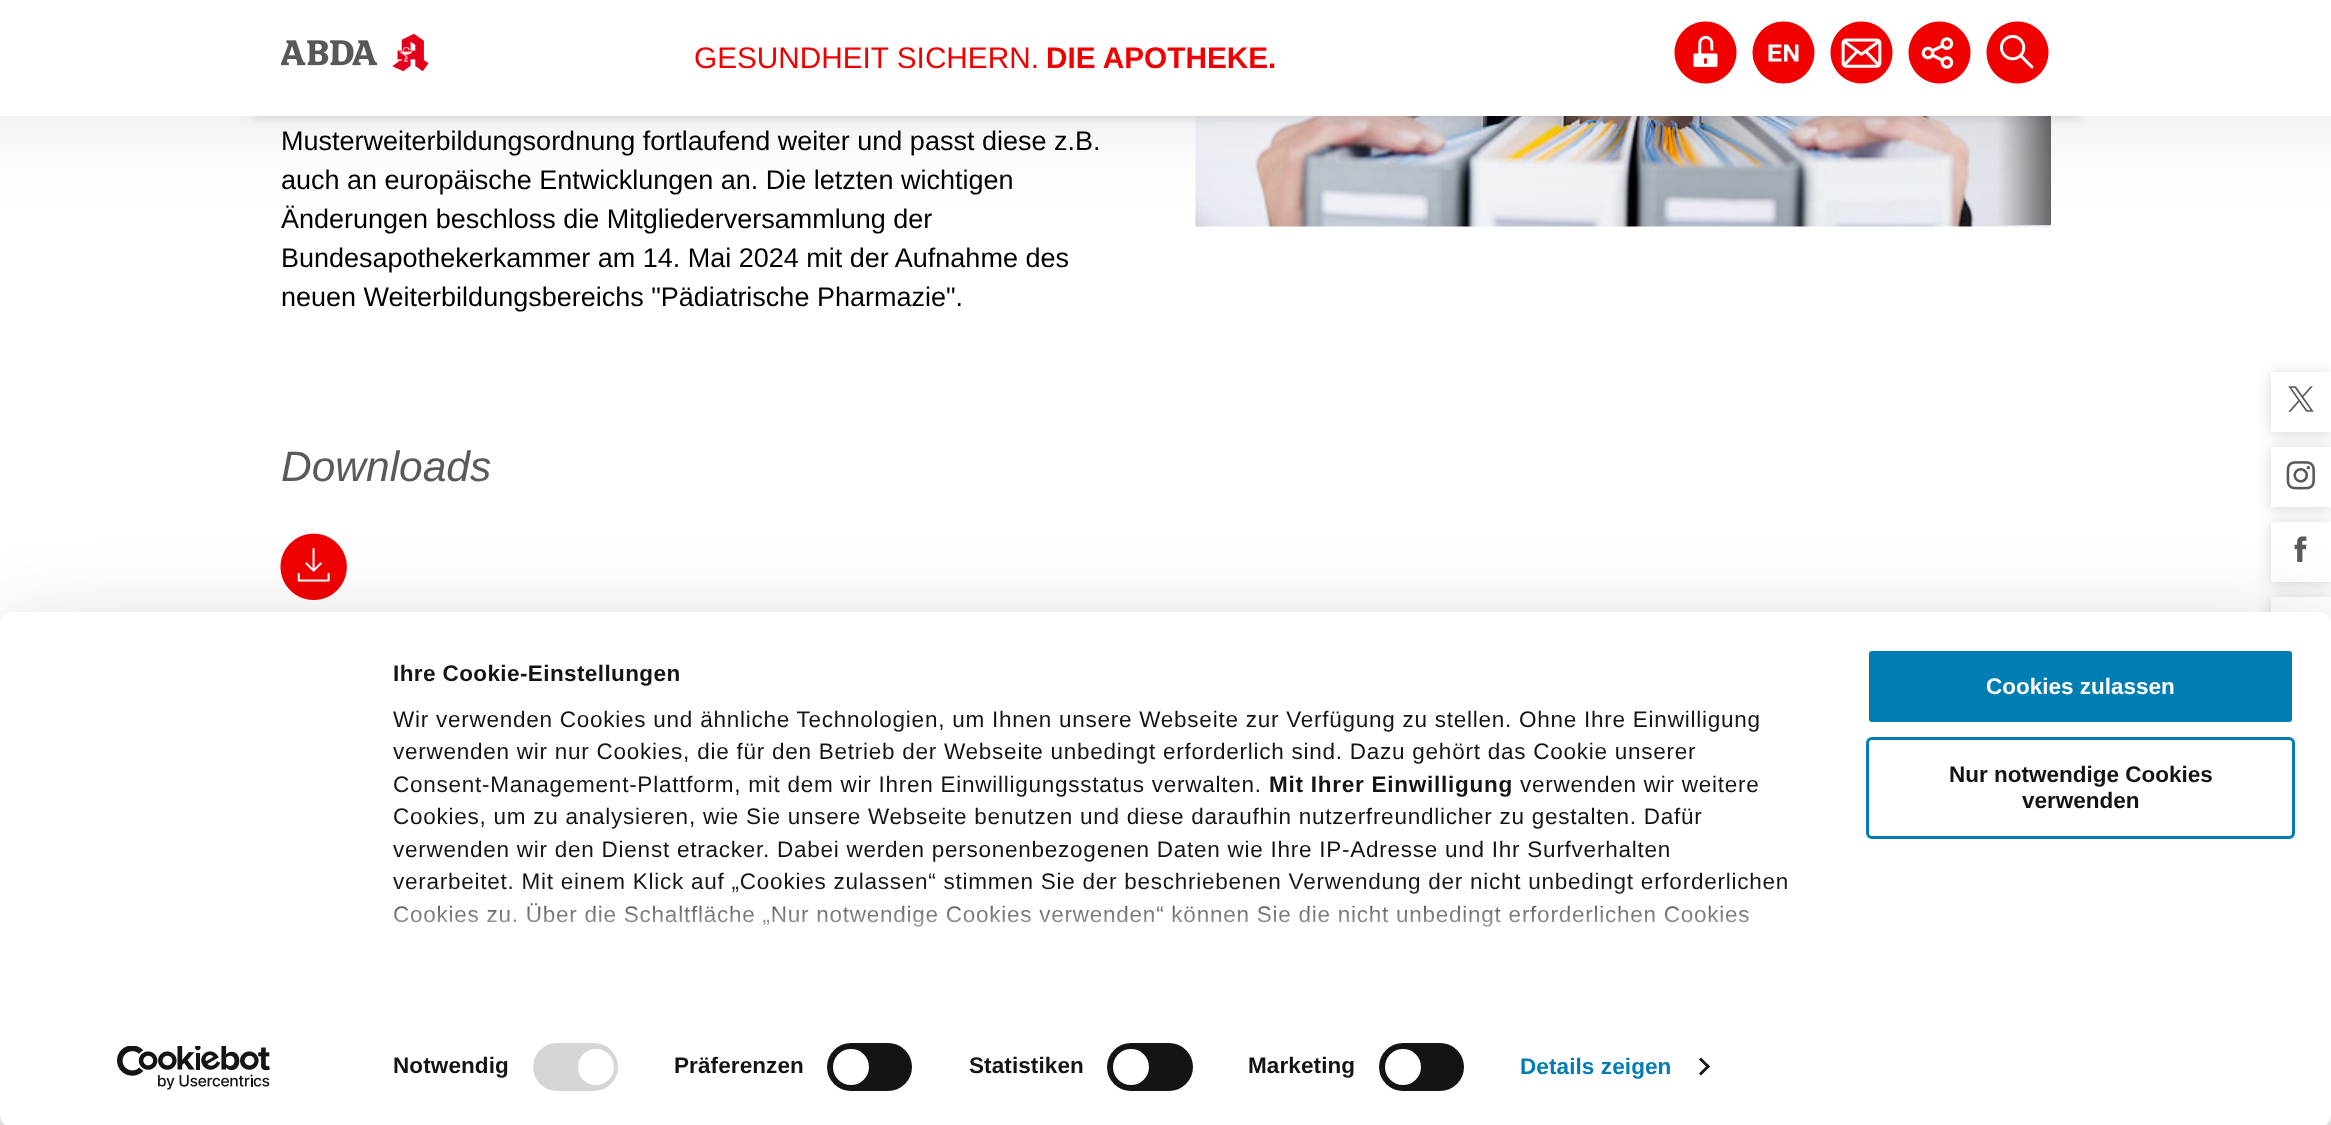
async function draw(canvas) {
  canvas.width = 2331;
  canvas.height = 1125;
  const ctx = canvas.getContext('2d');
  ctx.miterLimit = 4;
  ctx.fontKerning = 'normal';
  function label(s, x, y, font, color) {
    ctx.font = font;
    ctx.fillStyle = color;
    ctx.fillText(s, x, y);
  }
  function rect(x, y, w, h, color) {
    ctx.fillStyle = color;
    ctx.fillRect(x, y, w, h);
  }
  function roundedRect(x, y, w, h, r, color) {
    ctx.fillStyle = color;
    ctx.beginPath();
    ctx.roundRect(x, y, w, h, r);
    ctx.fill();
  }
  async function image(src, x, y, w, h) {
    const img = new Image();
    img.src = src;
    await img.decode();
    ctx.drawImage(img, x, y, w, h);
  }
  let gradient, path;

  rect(0, 0, 2331, 1125, '#fff');
  await image('assets/img6.png', 1195, 116, 856, 111);
  gradient = ctx.createLinearGradient(1997, -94, 2051, -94);
  gradient.addColorStop(0, '#5a5a5a00');
  gradient.addColorStop(0.31, '#5a5a5a40');
  gradient.addColorStop(1, '#5a5a5ae6');
  ctx.fillStyle = gradient;
  ctx.fillRect(1998, 116, 53, 109);
  ctx.fillStyle = '#303d4a1a';
  ctx.filter = 'blur(4.5px)';
  ctx.beginPath();
  ctx.rect(251, 5, 1830, 115);
  ctx.fill();
  ctx.filter = 'none';
  ctx.fillStyle = '#0000001a';
  ctx.filter = 'blur(45px)';
  ctx.beginPath();
  ctx.rect(-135, -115, 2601, 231);
  ctx.fill();
  ctx.filter = 'none';
  rect(0, 0, 2331, 116, '#fff');
  await image('assets/img1.png', 281, 33, 148, 39);
  label('GESUNDHEIT SICHERN.', 694, 68, '29.75px Liberation Sans', '#f00000');
  label('DIE APOTHEKE.', 1046, 68, 'bold 29.75px Liberation Sans', '#f00000');
  await image('assets/img2.png', 1674, 21, 63, 63);
  ctx.beginPath();
  ctx.arc(1783.5, 52.5, 31, 0, 2 * Math.PI);
  ctx.fill();
  ctx.fillStyle = '#fff';
  path = new Path2D('M1781.5 44.5V47.5H1772.5V51H1780.5V54H1772.5V58.5H1781.5V61.5H1768.5V44.5ZM1788 44.5L1795 56V44.5H1798.5V61.5H1794.5L1787.5 50V61.5H1784V44.5Z');
  ctx.fill(path);
  await image('assets/img3.png', 1830, 21, 63, 63);
  await image('assets/img4.png', 1908, 21, 63, 63);
  await image('assets/img5.png', 1986, 21, 63, 63);
  label('Musterweiterbildungsordnung fortlaufend weiter und passt diese z.B.', 281, 150, '27px Liberation Sans', '#000');
  label('auch an europäische Entwicklungen an. Die letzten wichtigen', 281, 189, '27px Liberation Sans', '#000');
  label('Änderungen beschloss die Mitgliederversammlung der', 281, 228, '27px Liberation Sans', '#000');
  label('Bundesapothekerkammer am 14. Mai 2024 mit der Aufnahme des', 281, 267, '27px Liberation Sans', '#000');
  label('neuen Weiterbildungsbereichs "Pädiatrische Pharmazie".', 281, 306, '27px Liberation Sans', '#000');
  label('Downloads', 281, 481, 'italic 42.5px Liberation Sans', '#5a5a5a');
  await image('assets/img7.png', 280, 533, 67, 67);
  ctx.save();
  path = new Path2D('M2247 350H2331V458H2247ZM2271 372H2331V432H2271Z');
  ctx.clip(path, 'evenodd');
  ctx.fillStyle = '#00000029';
  ctx.filter = 'blur(7.5px)';
  ctx.beginPath();
  ctx.rect(2271, 374, 60, 60);
  ctx.fill();
  ctx.filter = 'none';
  ctx.restore();
  await image('assets/img8.png', 2288, 386, 26, 26);
  ctx.save();
  path = new Path2D('M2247 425H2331V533H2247ZM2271 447H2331V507H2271Z');
  ctx.clip(path, 'evenodd');
  ctx.fillStyle = '#00000029';
  ctx.filter = 'blur(7.5px)';
  ctx.beginPath();
  ctx.rect(2271, 449, 60, 60);
  ctx.fill();
  ctx.filter = 'none';
  ctx.restore();
  await image('assets/img9.png', 2286, 461, 29, 29);
  ctx.save();
  path = new Path2D('M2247 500H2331V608H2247ZM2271 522H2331V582H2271Z');
  ctx.clip(path, 'evenodd');
  ctx.fillStyle = '#00000029';
  ctx.filter = 'blur(7.5px)';
  ctx.beginPath();
  ctx.rect(2271, 524, 60, 60);
  ctx.fill();
  ctx.filter = 'none';
  ctx.restore();
  await image('assets/img10.png', 2294, 536, 13, 26);
  ctx.save();
  path = new Path2D('M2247 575H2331V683H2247ZM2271 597H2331V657H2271Z');
  ctx.clip(path, 'evenodd');
  ctx.fillStyle = '#00000029';
  ctx.filter = 'blur(7.5px)';
  ctx.beginPath();
  ctx.rect(2271, 599, 60, 60);
  ctx.fill();
  ctx.filter = 'none';
  ctx.restore();
  ctx.fillStyle = '#0000004d';
  ctx.filter = 'blur(52.5px)';
  ctx.beginPath();
  ctx.roundRect(0, 657, 2331, 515, 12);
  ctx.fill();
  ctx.filter = 'none';
  roundedRect(0, 612, 2331, 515, 12, '#fff');
  ctx.letterSpacing = '0.4px';
  label('Ihre Cookie-Einstellungen', 393, 681, 'bold 22.5px Liberation Sans', '#141414');
  ctx.letterSpacing = '0.75px';
  label('Wir verwenden Cookies und ähnliche Technologien, um Ihnen unsere Webseite zur Verfügung zu stellen. Ohne Ihre Einwilligung', 393, 727, '22.5px Liberation Sans', '#141414');
  label('verwenden wir nur Cookies, die für den Betrieb der Webseite unbedingt erforderlich sind. Dazu gehört das Cookie unserer', 393, 759, '22.5px Liberation Sans', '#141414');
  label('Consent-Management-Plattform, mit dem wir Ihren Einwilligungsstatus verwalten.', 393, 792, '22.5px Liberation Sans', '#141414');
  label('Mit Ihrer Einwilligung', 1269, 792, 'bold 22.5px Liberation Sans', '#141414');
  label('verwenden wir weitere', 1520, 792, '22.5px Liberation Sans', '#141414');
  label('Cookies, um zu analysieren, wie Sie unsere Webseite benutzen und diese daraufhin nutzerfreundlicher zu gestalten. Dafür', 393, 824, '22.5px Liberation Sans', '#141414');
  label('verwenden wir den Dienst etracker. Dabei werden personenbezogenen Daten wie Ihre IP-Adresse und Ihr Surfverhalten', 393, 857, '22.5px Liberation Sans', '#141414');
  label('verarbeitet. Mit einem Klick auf „Cookies zulassen“ stimmen Sie der beschriebenen Verwendung der nicht unbedingt erforderlichen', 393, 889, '22.5px Liberation Sans', '#141414');
  label('Cookies zu. Über die Schaltfläche „Nur notwendige Cookies verwenden“ können Sie die nicht unbedingt erforderlichen Cookies', 393, 922, '22.5px Liberation Sans', '#141414');
  gradient = ctx.createLinearGradient(1094, 997, 1094, 884);
  gradient.addColorStop(0, '#fff');
  gradient.addColorStop(0.5, '#ffffffcc');
  gradient.addColorStop(1, '#ffffff00');
  ctx.fillStyle = gradient;
  ctx.fillRect(394, 886, 1393, 41);
  ctx.letterSpacing = '0.1px';
  label('Notwendig', 393, 1073, 'bold 22.5px Liberation Sans', '#141414');
  roundedRect(533, 1043, 85, 48, 24, '#d6d6d6');
  ctx.fillStyle = '#fff';
  ctx.beginPath();
  ctx.arc(596, 1067, 18, 0, 2 * Math.PI);
  ctx.fill();
  label('Präferenzen', 674, 1073, 'bold 22.5px Liberation Sans', '#141414');
  roundedRect(827, 1043, 85, 48, 24, '#141414');
  ctx.fillStyle = '#fff';
  ctx.beginPath();
  ctx.arc(851, 1067, 18, 0, 2 * Math.PI);
  ctx.fill();
  label('Statistiken', 969, 1073, 'bold 22.5px Liberation Sans', '#141414');
  roundedRect(1107, 1043, 86, 48, 24, '#141414');
  ctx.fillStyle = '#fff';
  ctx.beginPath();
  ctx.arc(1131, 1067, 18, 0, 2 * Math.PI);
  ctx.fill();
  label('Marketing', 1248, 1073, 'bold 22.5px Liberation Sans', '#141414');
  roundedRect(1379, 1043, 85, 48, 24, '#141414');
  ctx.fillStyle = '#fff';
  ctx.beginPath();
  ctx.arc(1403, 1067, 18, 0, 2 * Math.PI);
  ctx.fill();
  label('Details zeigen', 1520, 1074, 'bold 22.5px Liberation Sans', '#007db3');
  ctx.fillStyle = '#141414';
  path = new Path2D('M1701 1057.5L1710 1066.5L1708 1068.5L1699 1059.5Z');
  ctx.fill(path);
  path = new Path2D('M1708 1064.5L1710 1066.5L1701 1075.5L1699 1073.5Z');
  ctx.fill(path);
  ctx.fillStyle = '#007db3';
  ctx.beginPath();
  ctx.roundRect(1867.5, 649.5, 426, 74, 4.5);
  ctx.fill();
  ctx.strokeStyle = '#fff';
  ctx.lineWidth = 3;
  ctx.stroke();
  ctx.letterSpacing = '0px';
  label('Cookies zulassen', 1986, 694, 'bold 22.5px Liberation Sans', '#fff');
  ctx.beginPath();
  ctx.roundRect(1867.5, 738.5, 426, 99, 4.5);
  ctx.strokeStyle = '#007db3';
  ctx.stroke();
  label('Nur notwendige Cookies', 1949, 782, 'bold 22.5px Liberation Sans', '#141414');
  label('verwenden', 2022, 808, 'bold 22.5px Liberation Sans', '#141414');
  await image('assets/img11.png', 117, 1046, 153, 44);
}

draw(document.querySelector('canvas'));
